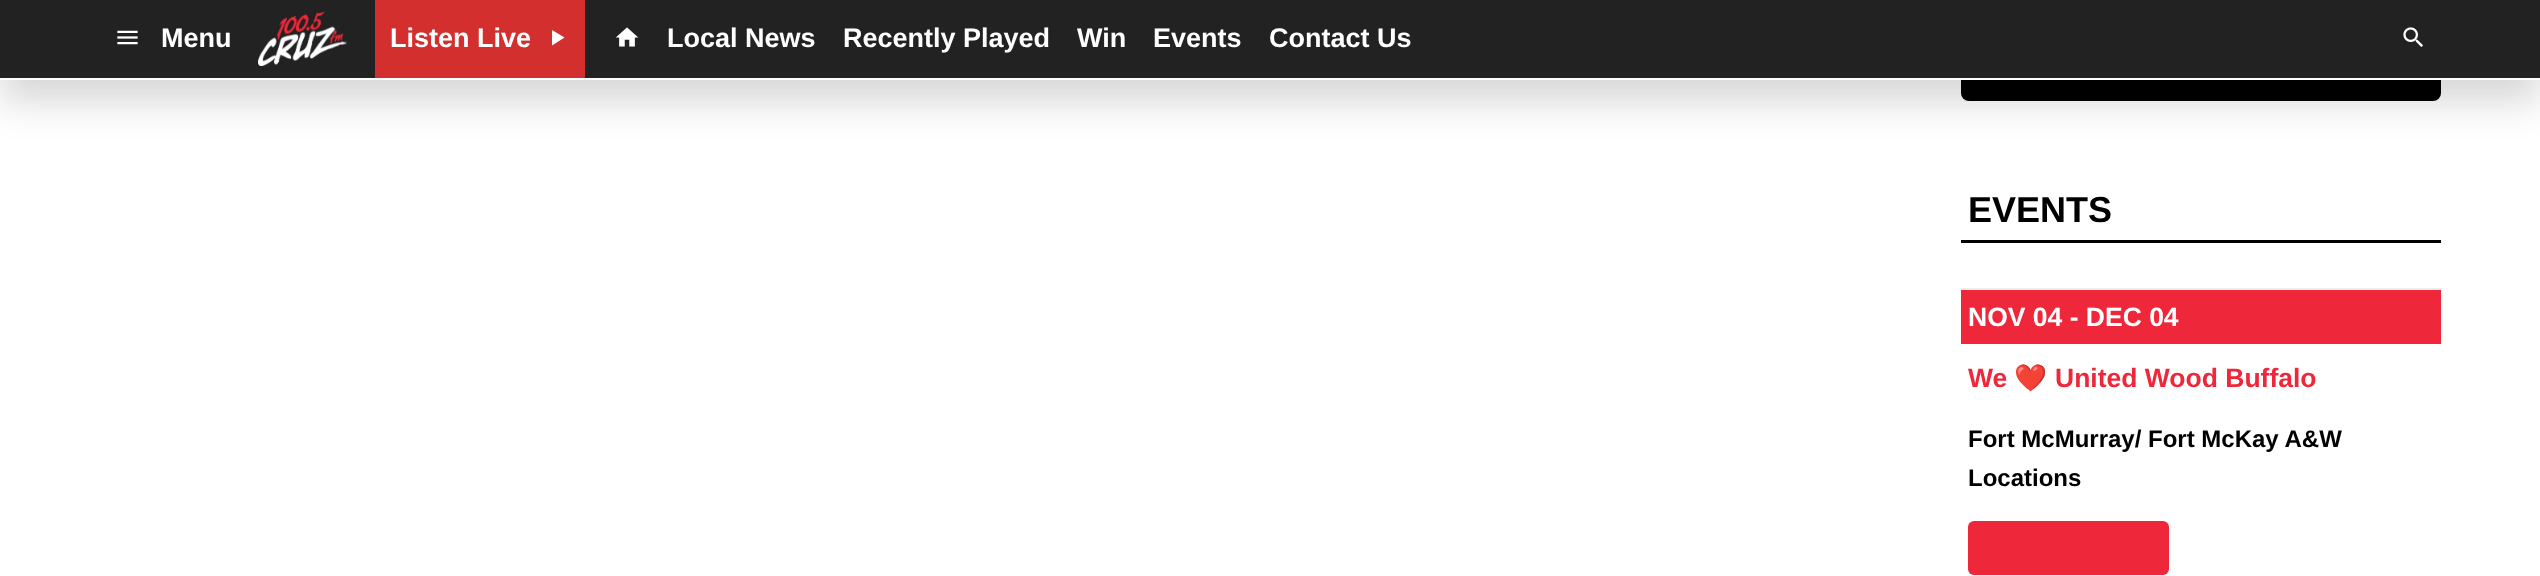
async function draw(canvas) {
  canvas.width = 2540;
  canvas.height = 576;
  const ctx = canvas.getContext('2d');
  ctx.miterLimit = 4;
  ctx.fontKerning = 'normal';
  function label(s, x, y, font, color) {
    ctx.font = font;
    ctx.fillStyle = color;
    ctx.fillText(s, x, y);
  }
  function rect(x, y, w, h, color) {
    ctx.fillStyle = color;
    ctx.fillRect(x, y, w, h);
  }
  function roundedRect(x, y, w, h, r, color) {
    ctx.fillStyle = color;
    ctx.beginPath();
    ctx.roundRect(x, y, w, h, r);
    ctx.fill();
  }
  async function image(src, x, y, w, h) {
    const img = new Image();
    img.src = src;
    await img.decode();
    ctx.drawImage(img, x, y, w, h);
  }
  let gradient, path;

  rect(0, 0, 2540, 576, '#fff');
  roundedRect(1961, 44, 480, 57, 8, '#000');
  ctx.save();
  ctx.beginPath();
  ctx.roundRect(1961, 44, 480, 57, 8);
  ctx.clip();
  gradient = ctx.createLinearGradient(2439, 45, 2439, 99);
  gradient.addColorStop(0, '#00000000');
  gradient.addColorStop(0.5, '#0000001a');
  gradient.addColorStop(1, '#0000001a');
  ctx.fillStyle = gradient;
  ctx.fillRect(1961, 80, 480, 19);
  ctx.restore();
  ctx.fillStyle = '#00000029';
  ctx.filter = 'blur(19px)';
  ctx.beginPath();
  ctx.rect(0, 20, 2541, 81);
  ctx.fill();
  ctx.filter = 'none';
  rect(0, 0, 2540, 78, '#222');
  rect(0, 78, 2540, 2, '#fff');
  await image('assets/img1.png', 117, 30, 21, 15);
  label('Menu', 161, 47, 'bold 27px Liberation Sans', '#fff');
  await image('assets/img2.png', 258, 11, 89, 55);
  rect(375, 0, 210, 78, '#d32f2f');
  label('Listen Live', 390, 47, 'bold 27px Liberation Sans', '#fff');
  path = new Path2D('M552 30V45.5L564.5 37.5Z');
  ctx.fill(path);
  await image('assets/img3.png', 615, 27, 24, 20);
  label('Local News', 667, 47, 'bold 27px Liberation Sans', '#fff');
  label('Recently Played', 843, 47, 'bold 27px Liberation Sans', '#fff');
  label('Win', 1077, 47, 'bold 27px Liberation Sans', '#fff');
  label('Events', 1153, 47, 'bold 27px Liberation Sans', '#fff');
  label('Contact Us', 1269, 47, 'bold 27px Liberation Sans', '#fff');
  await image('assets/img4.png', 2403, 27, 20, 20);
  rect(1961, 240, 480, 3, '#000');
  label('EVENTS', 1968, 222, 'bold 36px Liberation Sans', '#000');
  rect(1961, 288, 480, 2, '#eee');
  rect(1961, 290, 480, 54, '#ee283a');
  label('NOV 04 - DEC 04', 1968, 326, 'bold 26.5px Liberation Sans', '#fff');
  label('We', 1968, 387, 'bold 26.5px Liberation Sans', '#ee283a');
  label('❤️', 2014, 387, 'bold 26.5px Noto Color Emoji', '#ee283a');
  label('United Wood Buffalo', 2055, 387, 'bold 26.5px Liberation Sans', '#ee283a');
  label('Fort McMurray/ Fort McKay A&W', 1968, 447, 'bold 24px Liberation Sans', '#000');
  label('Locations', 1968, 486, 'bold 24px Liberation Sans', '#000');
  roundedRect(1968, 521, 201, 54, 6, '#ee283a');
}

draw(document.querySelector('canvas'));
